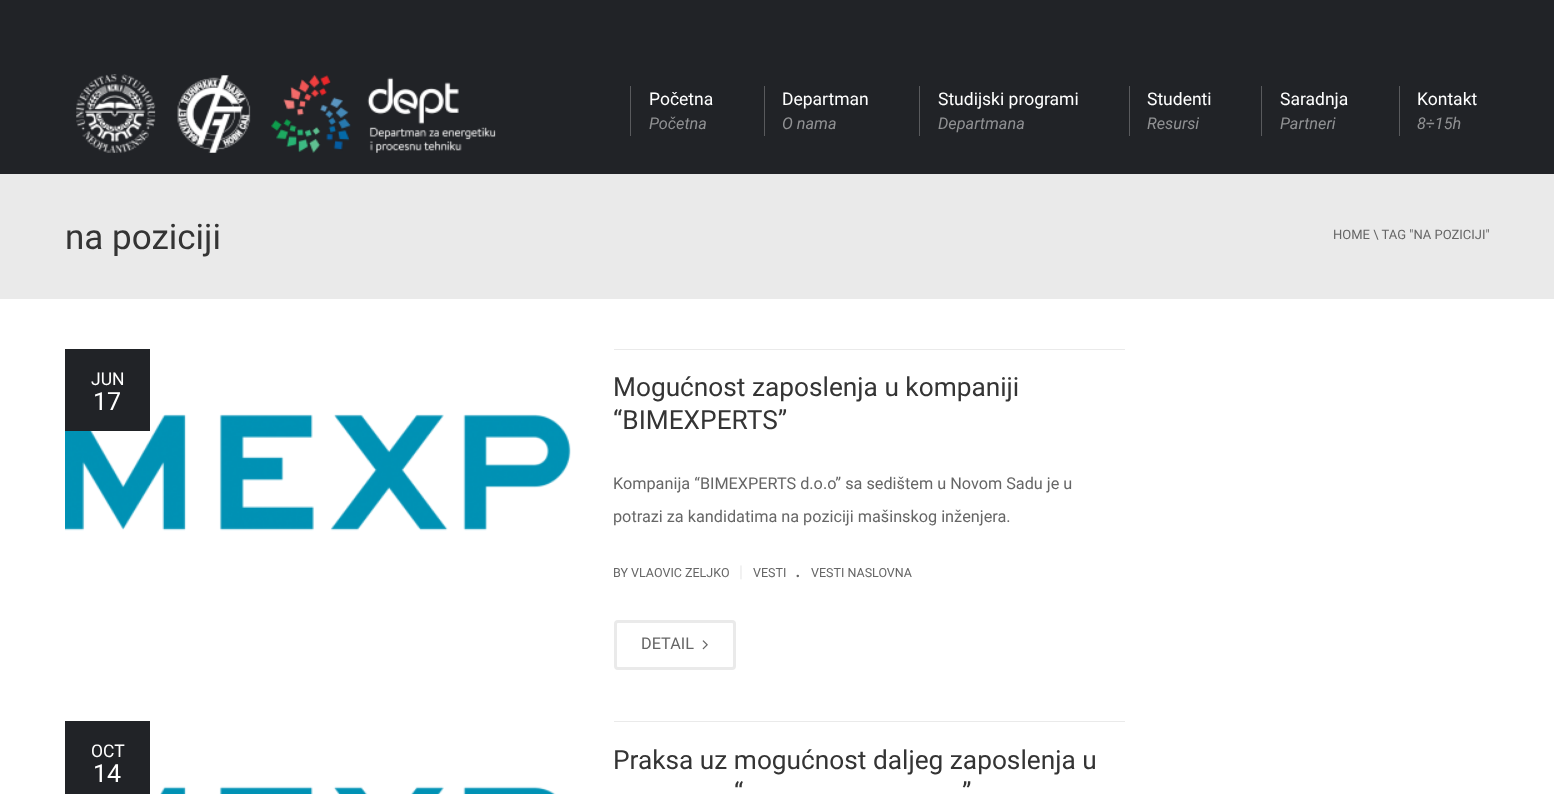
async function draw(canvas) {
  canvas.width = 1554;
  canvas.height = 794;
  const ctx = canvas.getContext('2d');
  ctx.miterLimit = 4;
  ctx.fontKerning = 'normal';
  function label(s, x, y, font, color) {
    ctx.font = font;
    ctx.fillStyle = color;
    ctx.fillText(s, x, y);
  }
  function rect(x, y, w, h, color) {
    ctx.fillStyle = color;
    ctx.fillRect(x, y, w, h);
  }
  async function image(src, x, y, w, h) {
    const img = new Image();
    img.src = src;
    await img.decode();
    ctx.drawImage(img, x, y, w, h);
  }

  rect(0, 0, 1554, 794, '#fff');
  rect(0, 0, 1554, 174, '#212327');
  await image('assets/img1.png', 76, 74, 420, 79);
  rect(630, 86, 1, 50, '#595a5d');
  label('Početna', 649, 105, '17.5px Roboto', '#fff');
  label('Početna', 649, 129, 'italic 16.25px Roboto', '#909193');
  rect(764, 86, 1, 50, '#595a5d');
  label('Departman', 782, 105, '17.5px Roboto', '#fff');
  label('O nama', 782, 129, 'italic 16.25px Roboto', '#909193');
  rect(919, 86, 1, 50, '#595a5d');
  label('Studijski programi', 938, 105, '17.5px Roboto', '#fff');
  label('Departmana', 938, 129, 'italic 16.25px Roboto', '#909193');
  rect(1129, 86, 1, 50, '#595a5d');
  label('Studenti', 1147, 105, '17.5px Roboto', '#fff');
  label('Resursi', 1147, 129, 'italic 16.25px Roboto', '#909193');
  rect(1261, 86, 1, 50, '#595a5d');
  label('Saradnja', 1280, 105, '17.5px Roboto', '#fff');
  label('Partneri', 1280, 129, 'italic 16.25px Roboto', '#909193');
  rect(1399, 86, 1, 50, '#595a5d');
  label('Kontakt', 1417, 105, '17.5px Roboto', '#fff');
  label('8÷15h', 1417, 129, 'italic 16.25px Roboto', '#909193');
  rect(0, 174, 1554, 125, '#eaeaea');
  label('na poziciji', 65, 249, '35px Roboto', '#343434');
  label('HOME \\ TAG "NA POZICIJI"', 1333, 239, '13px Roboto', '#666');
  await image('assets/img2.png', 65, 414, 506, 117);
  rect(65, 349, 85, 82, '#212327');
  label('JUN', 91, 385, '17.5px Roboto', '#fff');
  label('17', 93, 410, '25px Roboto', '#fff');
  rect(614, 349, 511, 1, '#eaeaea');
  label('Mogućnost zaposlenja u kompaniji', 613, 396, '26.25px Roboto', '#343434');
  label('“BIMEXPERTS”', 613, 429, '26.25px Roboto', '#343434');
  label('Kompanija “BIMEXPERTS d.o.o” sa sedištem u Novom Sadu je u', 613, 489, '16.25px Roboto', '#666');
  label('potrazi za kandidatima na poziciji mašinskog inženjera.', 613, 522, '16.25px Roboto', '#666');
  label('BY VLAOVIC ZELJKO', 613, 577, '12.5px Roboto', '#666');
  label('|', 739, 577, '16.25px Roboto', '#eaeaea');
  label('VESTI', 753, 577, '12.5px Roboto', '#666');
  label('.', 795, 577, '22px Roboto', '#666');
  label('VESTI NASLOVNA', 811, 577, '12.5px Roboto', '#666');
  ctx.beginPath();
  ctx.roundRect(615.5, 621.5, 119, 47, 2.5);
  ctx.strokeStyle = '#eaeaea';
  ctx.lineWidth = 3;
  ctx.stroke();
  label('DETAIL', 641, 649, '16.25px Roboto', '#666');
  await image('assets/img3.png', 702, 640, 6, 10);
  rect(65, 721, 85, 73, '#212327');
  label('OCT', 91, 757, '17.5px Roboto', '#fff');
  label('14', 93, 782, '25px Roboto', '#fff');
  await image('assets/img4.png', 160, 786, 396, 8);
  rect(614, 721, 511, 1, '#eaeaea');
  label('Praksa uz mogućnost daljeg zaposlenja u', 613, 769, '26.25px Roboto', '#343434');
  label('“', 734, 801, '26.25px Roboto', '#343434');
  label('”', 962, 801, '26.25px Roboto', '#343434');
}

draw(document.querySelector('canvas'));
